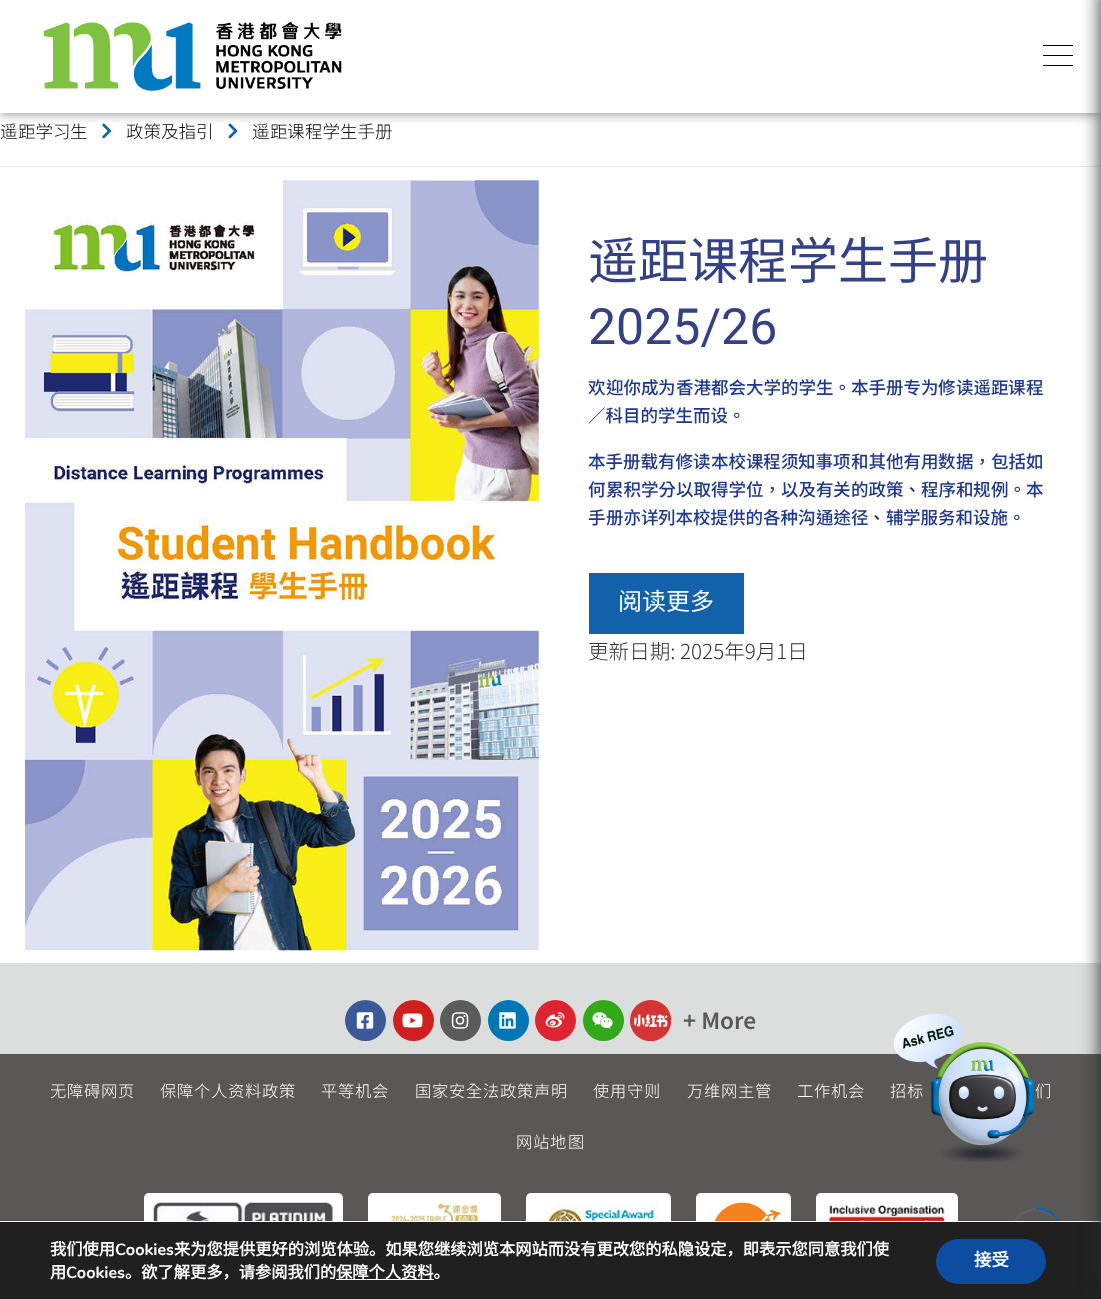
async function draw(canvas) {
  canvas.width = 1101;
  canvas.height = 1299;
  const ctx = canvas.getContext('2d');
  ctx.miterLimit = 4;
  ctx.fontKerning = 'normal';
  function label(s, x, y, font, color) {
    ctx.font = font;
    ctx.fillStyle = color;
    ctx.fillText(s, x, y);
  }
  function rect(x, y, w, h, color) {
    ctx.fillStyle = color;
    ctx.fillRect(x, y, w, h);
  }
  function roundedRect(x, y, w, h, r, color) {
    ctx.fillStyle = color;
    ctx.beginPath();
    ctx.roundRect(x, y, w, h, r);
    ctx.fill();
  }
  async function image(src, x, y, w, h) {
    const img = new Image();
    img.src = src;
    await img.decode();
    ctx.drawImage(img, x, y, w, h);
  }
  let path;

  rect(0, 0, 1101, 1299, '#fff');
  await image('assets/img2.png', 102, 123, 10, 16);
  await image('assets/img3.png', 228, 123, 10, 16);
  ctx.fillStyle = '#00000080';
  ctx.filter = 'blur(6px)';
  ctx.beginPath();
  ctx.rect(0, 0, 1101, 113);
  ctx.fill();
  ctx.filter = 'none';
  rect(0, 0, 1101, 113, '#fff');
  await image('assets/img1.png', 43, 22, 299, 69);
  rect(1043, 55, 30, 1, '#000');
  rect(1043, 45, 30, 1, '#000');
  rect(1043, 65, 30, 1, '#000');
  rect(0, 166, 1101, 1, '#eaeaea');
  rect(0, 963, 1101, 91, '#dcdddd');
  rect(0, 1054, 1101, 167, '#595857');
  roundedRect(144, 1193, 199, 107, 5, '#fff');
  roundedRect(368, 1193, 133, 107, 5, '#fff');
  roundedRect(526, 1193, 145, 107, 5, '#fff');
  roundedRect(696, 1193, 95, 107, 5, '#fff');
  roundedRect(816, 1193, 142, 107, 5, '#fff');
  ctx.beginPath();
  ctx.arc(1036.5, 1235.5, 26, 0, 2 * Math.PI);
  ctx.strokeStyle = '#616060';
  ctx.lineWidth = 3;
  ctx.stroke();
  ctx.save();
  ctx.beginPath();
  ctx.rect(1009, 1208, 55, 55);
  ctx.clip();
  path = new Path2D('M1036 1208.5C1043 1208.5 1050 1211.5 1055 1216.5C1076.5 1238 1050 1271.5 1024.5 1258.5');
  ctx.strokeStyle = '#1162ab';
  ctx.lineWidth = 2.2;
  ctx.stroke(path);
  ctx.restore();
  rect(0, 1222, 1101, 77, '#202020');
  ctx.fillStyle = '#2d2d2d';
  ctx.filter = 'blur(9.5px)';
  ctx.beginPath();
  ctx.rect(1101, -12, 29, 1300);
  ctx.fill();
  ctx.filter = 'none';
  label('遥', 0, 138, '300 17.5px Noto Sans SC', '#000');
  label('距学', 18, 138, '300 17.5px Noto Sans TC', '#000');
  label('习', 53, 138, '300 17.5px Noto Sans SC', '#000');
  label('生', 70, 138, '300 17.5px Noto Sans TC', '#000');
  label('政策及指引', 126, 138, '300 17.5px Noto Sans TC', '#000');
  label('遥', 252, 138, '300 17.5px Noto Sans SC', '#000');
  label('距', 270, 138, '300 17.5px Noto Sans TC', '#000');
  label('课', 287, 138, '300 17.5px Noto Sans SC', '#000');
  label('程学生手', 305, 138, '300 17.5px Noto Sans TC', '#000');
  label('册', 375, 138, '300 17.5px Noto Sans SC', '#000');
  await image('assets/img4.png', 25, 180, 514, 771);
  label('遥', 588, 279, '50px Noto Sans SC', '#344185');
  label('距', 638, 279, '50px Noto Sans TC', '#344185');
  label('课', 688, 279, '50px Noto Sans SC', '#344185');
  label('程学生手', 738, 279, '50px Noto Sans TC', '#344185');
  label('册', 938, 279, '50px Noto Sans SC', '#344185');
  label('2025/26', 588, 344, '50px Roboto', '#344185');
  label('欢', 588, 394, '500 17.5px Noto Sans SC', '#1f398b');
  label('迎你成', 606, 394, '500 17.5px Noto Sans TC', '#1f398b');
  label('为', 658, 394, '500 17.5px Noto Sans SC', '#1f398b');
  label('香港都会大学的学生。本手', 676, 394, '500 17.5px Noto Sans TC', '#1f398b');
  label('册专为', 886, 394, '500 17.5px Noto Sans SC', '#1f398b');
  label('修', 938, 394, '500 17.5px Noto Sans TC', '#1f398b');
  label('读遥', 956, 394, '500 17.5px Noto Sans SC', '#1f398b');
  label('距', 991, 394, '500 17.5px Noto Sans TC', '#1f398b');
  label('课', 1008, 394, '500 17.5px Noto Sans SC', '#1f398b');
  label('程', 1026, 394, '500 17.5px Noto Sans TC', '#1f398b');
  label('／科目的学生而设。', 588, 422, '500 17.5px Noto Sans TC', '#1f398b');
  label('本手', 588, 468, '500 17.5px Noto Sans TC', '#1f398b');
  label('册载', 623, 468, '500 17.5px Noto Sans SC', '#1f398b');
  label('有修', 658, 468, '500 17.5px Noto Sans TC', '#1f398b');
  label('读', 693, 468, '500 17.5px Noto Sans SC', '#1f398b');
  label('本校', 711, 468, '500 17.5px Noto Sans TC', '#1f398b');
  label('课', 746, 468, '500 17.5px Noto Sans SC', '#1f398b');
  label('程', 763, 468, '500 17.5px Noto Sans TC', '#1f398b');
  label('须', 781, 468, '500 17.5px Noto Sans SC', '#1f398b');
  label('知事', 798, 468, '500 17.5px Noto Sans TC', '#1f398b');
  label('项', 833, 468, '500 17.5px Noto Sans SC', '#1f398b');
  label('和其他有用', 851, 468, '500 17.5px Noto Sans TC', '#1f398b');
  label('数', 938, 468, '500 17.5px Noto Sans SC', '#1f398b');
  label('据，包括如', 956, 468, '500 17.5px Noto Sans TC', '#1f398b');
  label('何', 588, 496, '500 17.5px Noto Sans TC', '#1f398b');
  label('累积', 606, 496, '500 17.5px Noto Sans SC', '#1f398b');
  label('学分以取得学位，以及有', 641, 496, '500 17.5px Noto Sans TC', '#1f398b');
  label('关', 833, 496, '500 17.5px Noto Sans SC', '#1f398b');
  label('的政策、程序和', 851, 496, '500 17.5px Noto Sans TC', '#1f398b');
  label('规', 973, 496, '500 17.5px Noto Sans SC', '#1f398b');
  label('例。本', 991, 496, '500 17.5px Noto Sans TC', '#1f398b');
  label('手', 588, 524, '500 17.5px Noto Sans TC', '#1f398b');
  label('册亦详', 606, 524, '500 17.5px Noto Sans SC', '#1f398b');
  label('列本校提供的各种', 658, 524, '500 17.5px Noto Sans TC', '#1f398b');
  label('沟', 798, 524, '500 17.5px Noto Sans SC', '#1f398b');
  label('通途', 816, 524, '500 17.5px Noto Sans TC', '#1f398b');
  label('径', 851, 524, '500 17.5px Noto Sans SC', '#1f398b');
  label('、', 868, 524, '500 17.5px Noto Sans TC', '#1f398b');
  label('辅', 886, 524, '500 17.5px Noto Sans SC', '#1f398b');
  label('学服务和设施。', 903, 524, '500 17.5px Noto Sans TC', '#1f398b');
  rect(589, 573, 155, 61, '#1162ab');
  label('阅读更多', 618, 610, '24px Noto Sans SC', '#fff');
  label('更新日期: 2025年9月1日', 588, 659, '300 20.6px Noto Sans TC', '#333');
  ctx.fillStyle = '#3b5998';
  ctx.beginPath();
  ctx.arc(365.5, 1020.5, 20.5, 0, 2 * Math.PI);
  ctx.fill();
  await image('assets/img5.png', 356, 1012, 18, 17);
  ctx.fillStyle = '#cd201f';
  ctx.beginPath();
  ctx.arc(413.5, 1020.5, 20.5, 0, 2 * Math.PI);
  ctx.fill();
  await image('assets/img6.png', 402, 1013, 21, 15);
  ctx.fillStyle = '#5b5b5b';
  ctx.beginPath();
  ctx.arc(460.5, 1020.5, 20.5, 0, 2 * Math.PI);
  ctx.fill();
  await image('assets/img7.png', 451, 1012, 18, 17);
  ctx.fillStyle = '#0077b5';
  ctx.beginPath();
  ctx.arc(508.5, 1020.5, 20.5, 0, 2 * Math.PI);
  ctx.fill();
  await image('assets/img8.png', 499, 1012, 17, 17);
  ctx.fillStyle = '#dd2430';
  ctx.beginPath();
  ctx.arc(555.5, 1020.5, 20.5, 0, 2 * Math.PI);
  ctx.fill();
  await image('assets/img9.png', 545, 1012, 20, 16);
  ctx.fillStyle = '#31a918';
  ctx.beginPath();
  ctx.arc(603.5, 1020.5, 20.5, 0, 2 * Math.PI);
  ctx.fill();
  await image('assets/img10.png', 592, 1012, 21, 17);
  await image('assets/img11.png', 630, 1000, 41, 41);
  label('+ More', 683, 1029, '600 22.5px Noto Sans TC', '#595857');
  ctx.letterSpacing = '0.75px';
  label('无障碍网页', 50, 1097, '300 16.25px Noto Sans TC', '#fff');
  label('保障个人', 160, 1097, '300 16.25px Noto Sans TC', '#fff');
  label('资', 228, 1097, '300 16.25px Noto Sans SC', '#fff');
  label('料政策', 245, 1097, '300 16.25px Noto Sans TC', '#fff');
  label('平等机会', 321, 1097, '300 16.25px Noto Sans TC', '#fff');
  label('国家安全法政策声明', 415, 1097, '300 16.25px Noto Sans TC', '#fff');
  label('使用守', 593, 1097, '300 16.25px Noto Sans TC', '#fff');
  label('则', 644, 1097, '300 16.25px Noto Sans SC', '#fff');
  label('万', 687, 1097, '300 16.25px Noto Sans TC', '#fff');
  label('维', 704, 1097, '300 16.25px Noto Sans SC', '#fff');
  label('网主管', 721, 1097, '300 16.25px Noto Sans TC', '#fff');
  label('工作机会', 797, 1097, '300 16.25px Noto Sans TC', '#fff');
  label('招', 890, 1097, '300 16.25px Noto Sans TC', '#fff');
  label('标', 907, 1097, '300 16.25px Noto Sans SC', '#fff');
  label('们', 1035, 1097, '300 16.25px Noto Sans SC', '#fff');
  label('网站地', 516, 1148, '300 16.25px Noto Sans TC', '#fff');
  label('图', 568, 1148, '300 16.25px Noto Sans SC', '#fff');
  await image('assets/img12.png', 153, 1202, 180, 19);
  await image('assets/img13.png', 378, 1203, 113, 18);
  await image('assets/img14.png', 536, 1202, 124, 19);
  await image('assets/img15.png', 714, 1202, 68, 19);
  await image('assets/img16.png', 826, 1203, 122, 18);
  await image('assets/img17.png', 893, 1014, 141, 148);
  rect(1012, 1221, 49, 1, '#fff');
  ctx.letterSpacing = '0px';
  label('我们使用', 50, 1255, 'bold 16.25px Noto Sans CJK SC', '#fff');
  label('Cookies', 115, 1255, 'bold 16.25px Nunito', '#fff');
  label('来为您提供更好的浏览体验。如果您继续浏览本网站而没有更改您的私隐设定，即表示您同意我们使', 174, 1255, 'bold 16.25px Noto Sans CJK SC', '#fff');
  label('用', 50, 1278, 'bold 16.25px Noto Sans CJK SC', '#fff');
  label('Cookies', 66, 1278, 'bold 16.25px Nunito', '#fff');
  label('。欲了解更多，请参阅我们的', 125, 1278, 'bold 16.25px Noto Sans CJK SC', '#fff');
  rect(336, 1279, 98, 1, '#fff');
  label('保障个人资料。', 336, 1278, 'bold 16.25px Noto Sans CJK SC', '#fff');
  roundedRect(936, 1239, 110, 45, 22.5, '#0c4da2');
  label('接受', 974, 1266, 'bold 17.5px Noto Sans CJK SC', '#fff');
}

draw(document.querySelector('canvas'));
